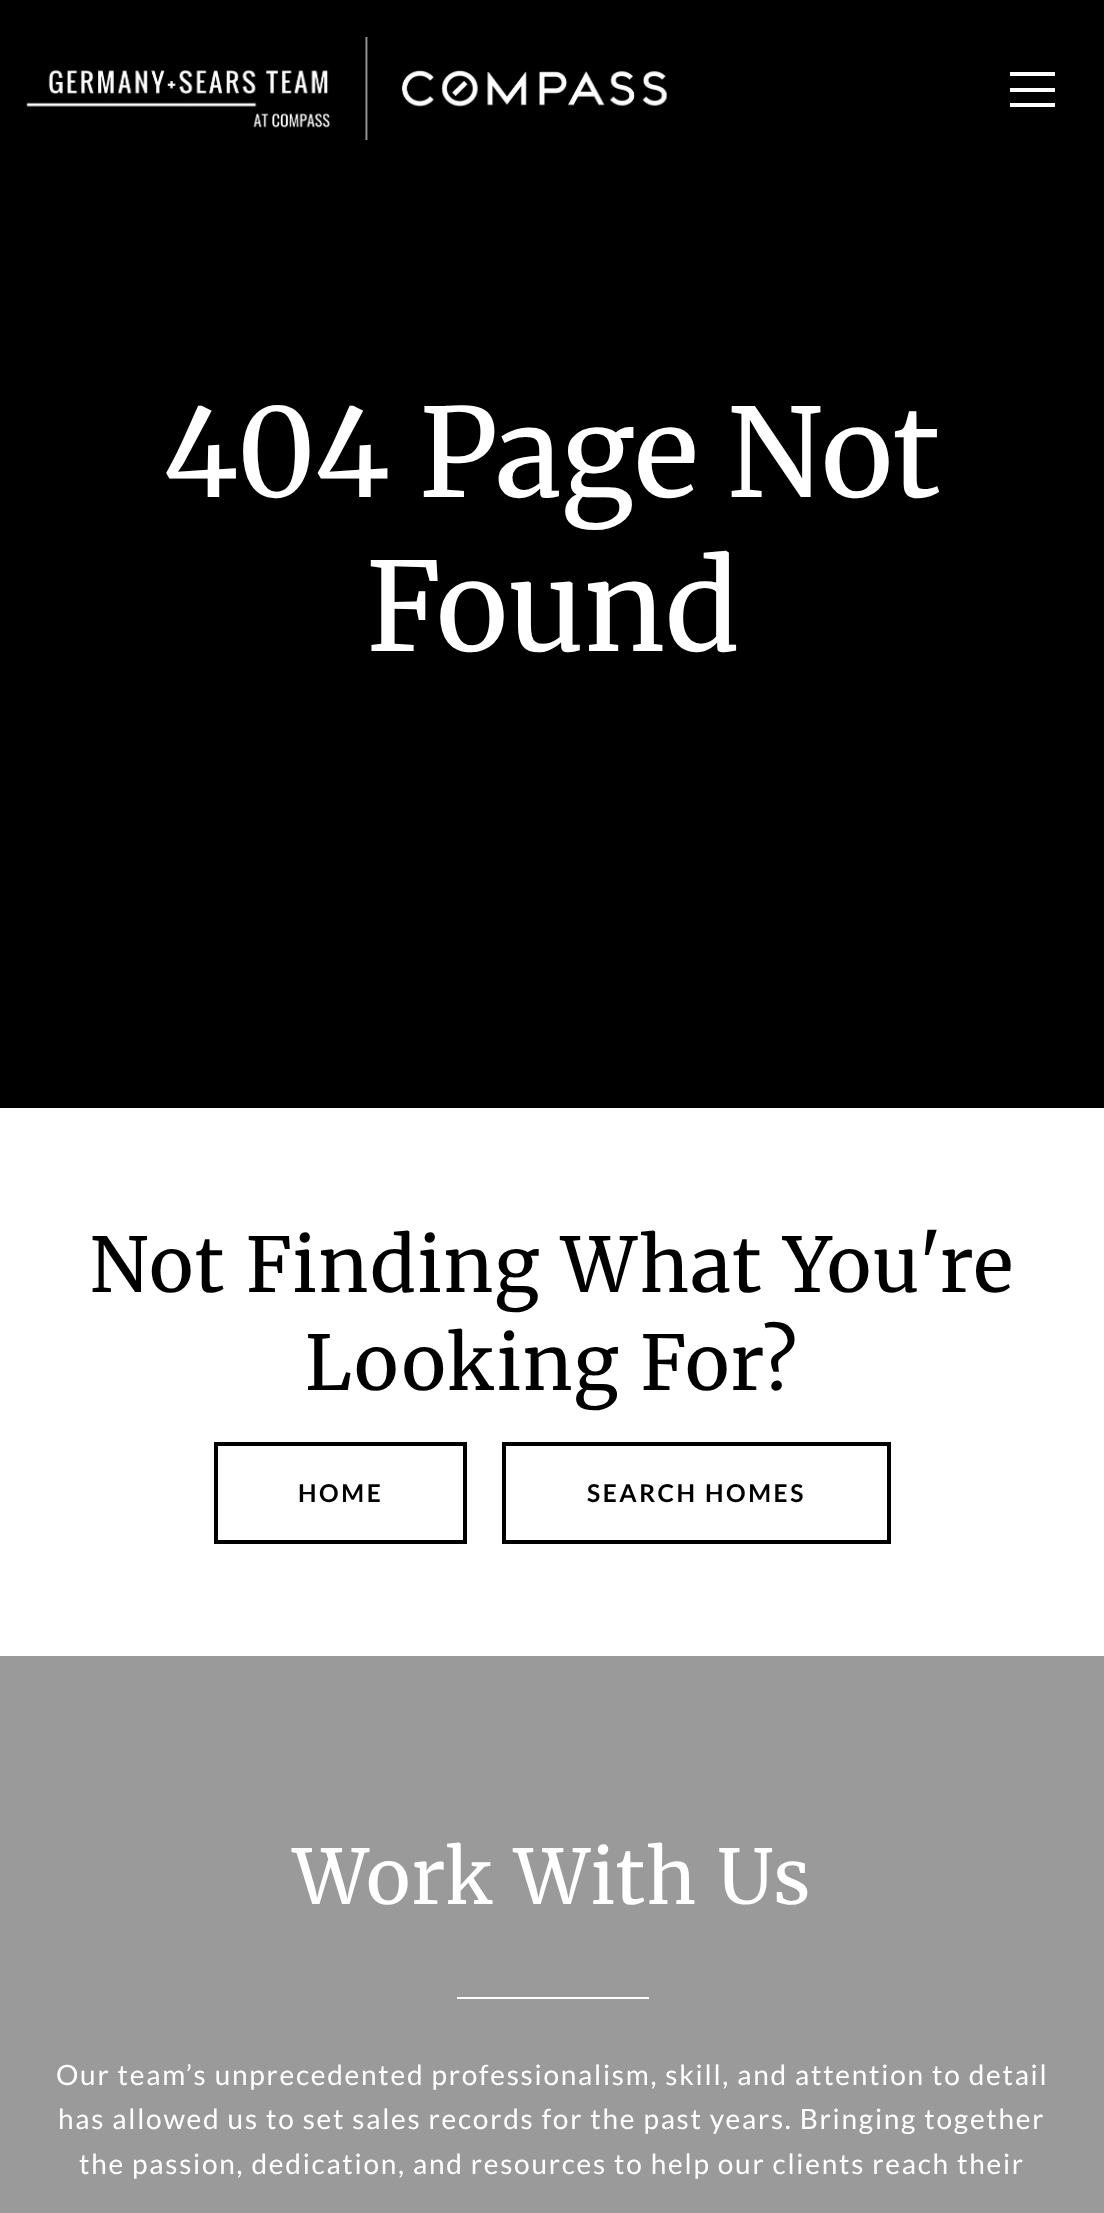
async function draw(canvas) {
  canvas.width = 1104;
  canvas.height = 2213;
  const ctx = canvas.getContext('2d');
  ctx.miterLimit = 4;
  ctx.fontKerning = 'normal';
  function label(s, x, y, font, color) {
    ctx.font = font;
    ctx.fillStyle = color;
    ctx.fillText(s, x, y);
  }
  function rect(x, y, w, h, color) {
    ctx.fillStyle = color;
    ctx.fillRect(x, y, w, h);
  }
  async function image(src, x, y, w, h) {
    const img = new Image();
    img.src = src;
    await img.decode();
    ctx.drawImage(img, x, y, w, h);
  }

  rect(0, 0, 1104, 2213, '#fff');
  rect(0, 0, 1104, 1108, '#000');
  await image('assets/img1.png', 26, 37, 641, 103);
  rect(1010, 88, 45, 4, '#fff');
  rect(1010, 72, 45, 4, '#fff');
  rect(1010, 103, 45, 4, '#fff');
  label('404 Page Not', 163, 497, '122.5px Merriweather', '#fff');
  label('Found', 366, 651, '122.5px Merriweather', '#fff');
  ctx.letterSpacing = '1.75px';
  label('Not Finding What You\'re', 90, 1292, '75.25px Merriweather', '#000');
  label('Looking For?', 305, 1390, '75.25px Merriweather', '#000');
  ctx.strokeStyle = '#000';
  ctx.lineWidth = 4;
  ctx.strokeRect(216, 1444, 249, 98);
  ctx.letterSpacing = '2.6px';
  label('HOME', 298, 1502, 'bold 24.5px Lato', '#000');
  ctx.strokeRect(504, 1444, 385, 98);
  label('SEARCH HOMES', 587, 1502, 'bold 24.5px Lato', '#000');
  rect(0, 1656, 1104, 557, '#9a9a9a');
  ctx.letterSpacing = '1.75px';
  label('Work With Us', 293, 1904, '75.25px Merriweather', '#fff');
  rect(457, 1997, 192, 2, '#fff');
  label('Our team’s unprecedented professionalism, skill, and attention to detail', 56, 2085, '28px Lato', '#fff');
  label('has allowed us to set sales records for the past years. Bringing together', 58, 2129, '28px Lato', '#fff');
  label('the passion, dedication, and resources to help our clients reach their', 79, 2174, '28px Lato', '#fff');
}

draw(document.querySelector('canvas'));
